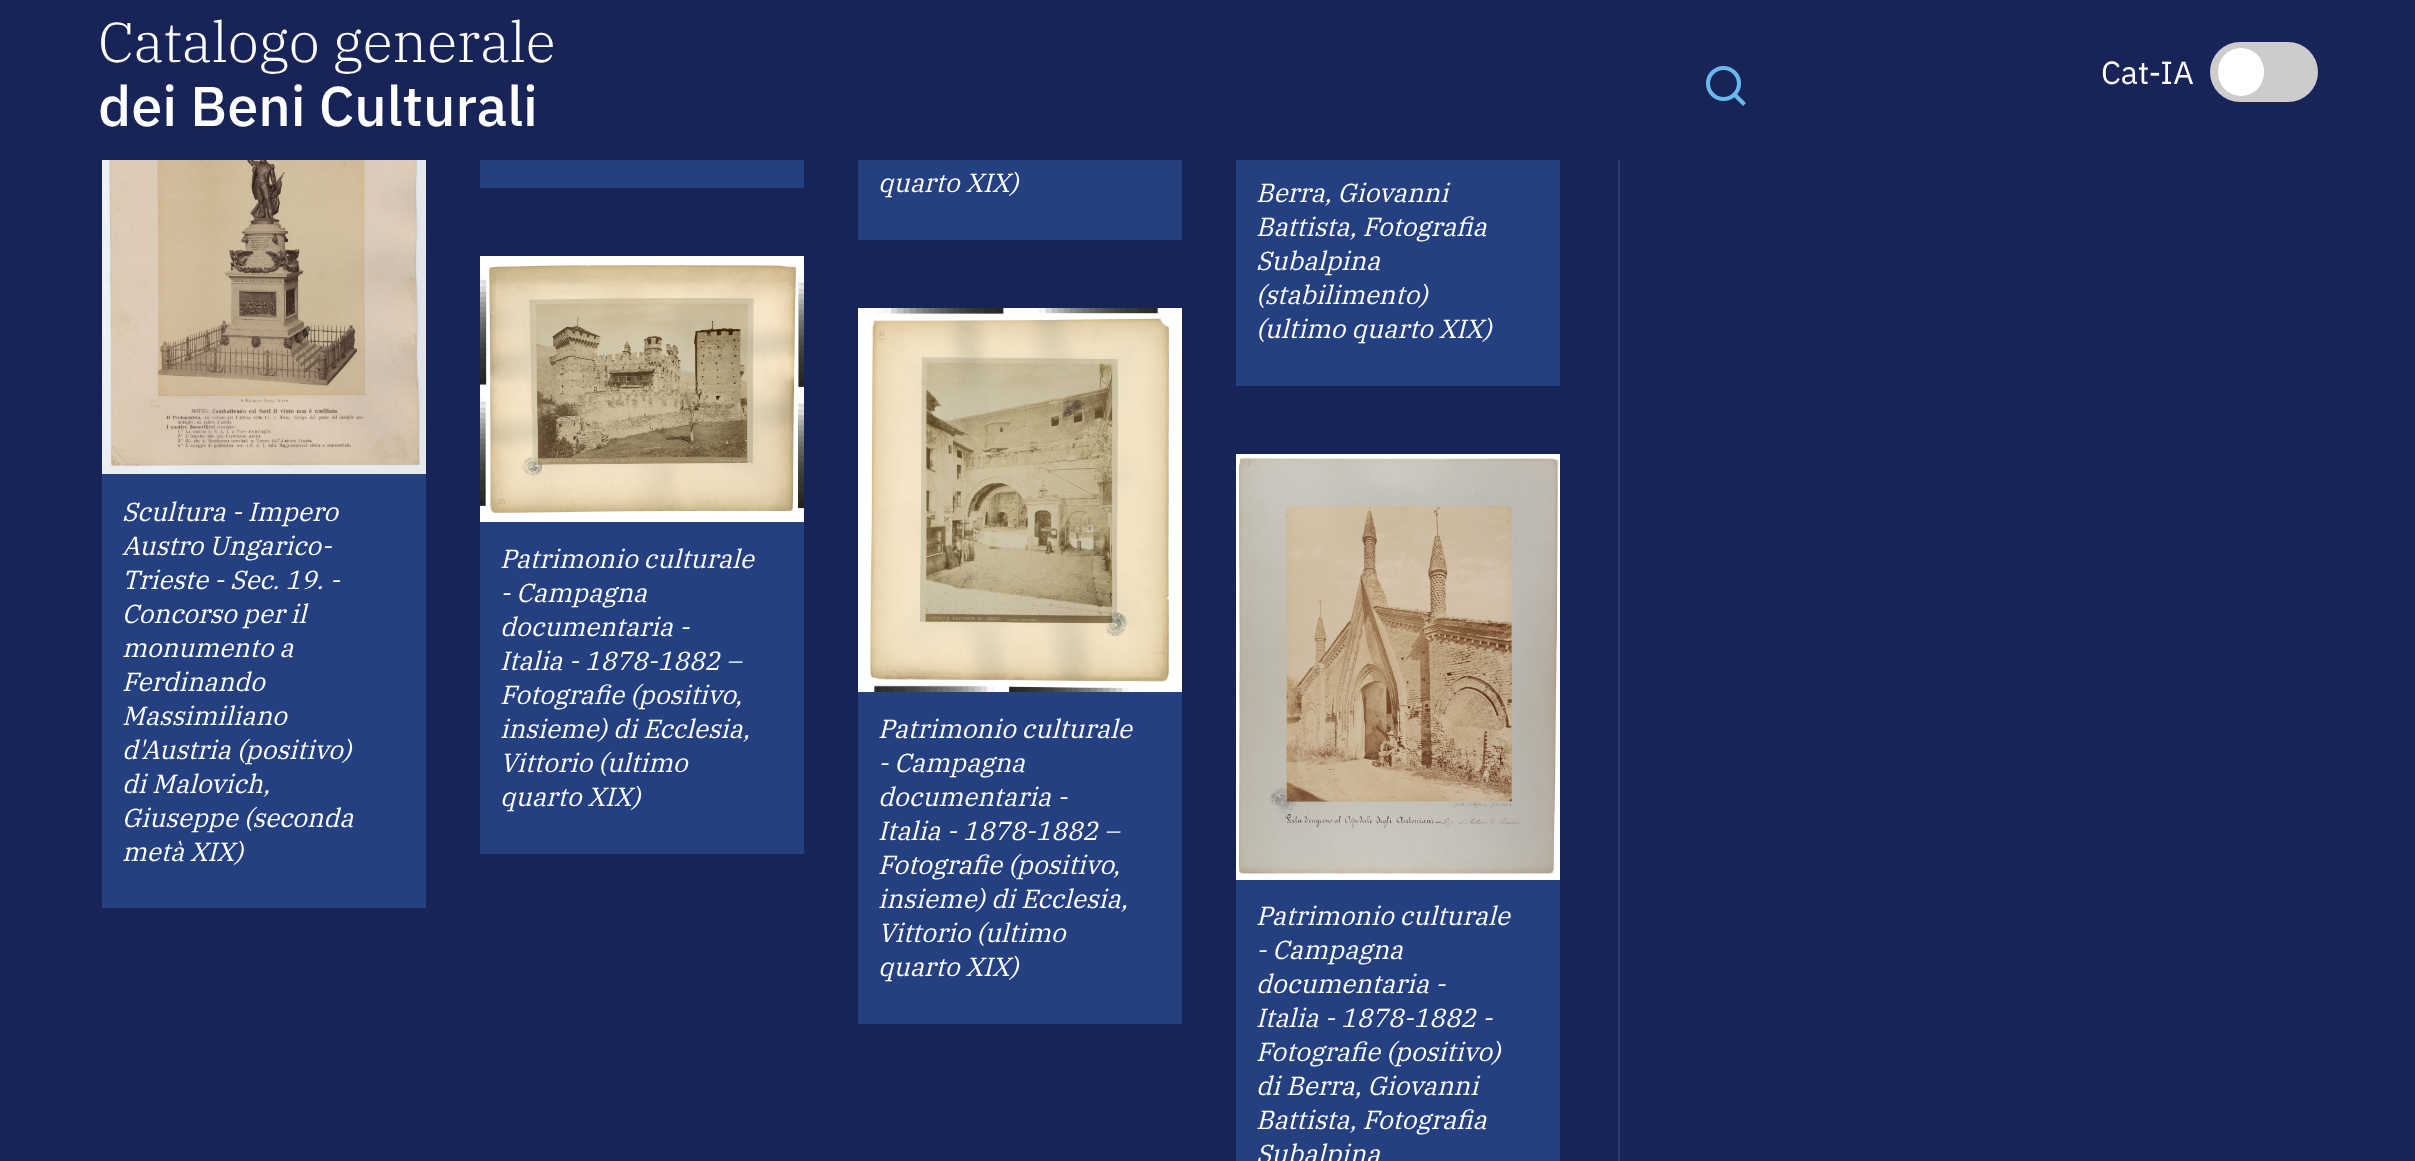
async function draw(canvas) {
  canvas.width = 2415;
  canvas.height = 1161;
  const ctx = canvas.getContext('2d');
  ctx.miterLimit = 4;
  ctx.fontKerning = 'normal';
  function label(s, x, y, font, color) {
    ctx.font = font;
    ctx.fillStyle = color;
    ctx.fillText(s, x, y);
  }
  function rect(x, y, w, h, color) {
    ctx.fillStyle = color;
    ctx.fillRect(x, y, w, h);
  }
  function roundedRect(x, y, w, h, r, color) {
    ctx.fillStyle = color;
    ctx.beginPath();
    ctx.roundRect(x, y, w, h, r);
    ctx.fill();
  }
  async function image(src, x, y, w, h) {
    const img = new Image();
    img.src = src;
    await img.decode();
    ctx.drawImage(img, x, y, w, h);
  }
  let path;

  rect(0, 0, 2415, 1161, '#182358');
  label('Catalogo generale', 98, 62, '300 56px IBM Plex Serif', '#fff');
  label('dei Beni Culturali', 98, 126, '500 56px IBM Plex Sans', '#fff');
  path = new Path2D('M1723.5 99C1732 99 1739 92 1739 83.5C1739 75 1732 68 1723.5 68C1715 68 1708 75 1708 83.5C1708 92 1715 99 1723.5 99ZM1735 95L1744.5 104.5');
  ctx.strokeStyle = '#69b9ec';
  ctx.lineWidth = 4.1;
  ctx.stroke(path);
  label('Cat-IA', 2101, 84, '32px IBM Plex Sans', '#fff');
  roundedRect(2210, 42, 108, 60, 30, '#ccc');
  roundedRect(2218, 48, 46, 48, 23, '#fff');
  rect(1618, 160, 2, 1001, '#2a3f71');
  rect(480, 160, 324, 28, '#244080');
  rect(858, 160, 324, 80, '#244080');
  label('quarto XIX)', 878, 192, 'italic 26px IBM Plex Serif', '#fff');
  rect(1236, 160, 324, 226, '#244080');
  label('Berra, Giovanni', 1256, 202, 'italic 26px IBM Plex Serif', '#fff');
  label('Battista, Fotografia', 1256, 236, 'italic 26px IBM Plex Serif', '#fff');
  label('Subalpina', 1256, 270, 'italic 26px IBM Plex Serif', '#fff');
  label('(stabilimento)', 1256, 304, 'italic 26px IBM Plex Serif', '#fff');
  label('(ultimo quarto XIX)', 1256, 338, 'italic 26px IBM Plex Serif', '#fff');
  await image('assets/img1.png', 102, 160, 324, 314);
  rect(102, 474, 324, 434, '#244080');
  label('Scultura - Impero', 122, 521, 'italic 26px IBM Plex Serif', '#fff');
  label('Austro Ungarico-', 122, 555, 'italic 26px IBM Plex Serif', '#fff');
  label('Trieste - Sec. 19. -', 122, 589, 'italic 26px IBM Plex Serif', '#fff');
  label('Concorso per il', 122, 623, 'italic 26px IBM Plex Serif', '#fff');
  label('monumento a', 122, 657, 'italic 26px IBM Plex Serif', '#fff');
  label('Ferdinando', 122, 691, 'italic 26px IBM Plex Serif', '#fff');
  label('Massimiliano', 122, 725, 'italic 26px IBM Plex Serif', '#fff');
  label('d\'Austria (positivo)', 122, 759, 'italic 26px IBM Plex Serif', '#fff');
  label('di Malovich,', 122, 793, 'italic 26px IBM Plex Serif', '#fff');
  label('Giuseppe (seconda', 122, 827, 'italic 26px IBM Plex Serif', '#fff');
  label('metà XIX)', 122, 861, 'italic 26px IBM Plex Serif', '#fff');
  await image('assets/img2.png', 480, 256, 324, 266);
  rect(480, 522, 324, 332, '#244080');
  label('Patrimonio culturale', 500, 568, 'italic 26px IBM Plex Serif', '#fff');
  label('- Campagna', 500, 602, 'italic 26px IBM Plex Serif', '#fff');
  label('documentaria -', 500, 636, 'italic 26px IBM Plex Serif', '#fff');
  label('Italia - 1878-1882 –', 500, 670, 'italic 26px IBM Plex Serif', '#fff');
  label('Fotografie (positivo,', 500, 704, 'italic 26px IBM Plex Serif', '#fff');
  label('insieme) di Ecclesia,', 500, 738, 'italic 26px IBM Plex Serif', '#fff');
  label('Vittorio (ultimo', 500, 772, 'italic 26px IBM Plex Serif', '#fff');
  label('quarto XIX)', 500, 806, 'italic 26px IBM Plex Serif', '#fff');
  await image('assets/img3.png', 858, 308, 324, 384);
  rect(858, 692, 324, 332, '#244080');
  label('Patrimonio culturale', 878, 738, 'italic 26px IBM Plex Serif', '#fff');
  label('- Campagna', 878, 772, 'italic 26px IBM Plex Serif', '#fff');
  label('documentaria -', 878, 806, 'italic 26px IBM Plex Serif', '#fff');
  label('Italia - 1878-1882 –', 878, 840, 'italic 26px IBM Plex Serif', '#fff');
  label('Fotografie (positivo,', 878, 874, 'italic 26px IBM Plex Serif', '#fff');
  label('insieme) di Ecclesia,', 878, 908, 'italic 26px IBM Plex Serif', '#fff');
  label('Vittorio (ultimo', 878, 942, 'italic 26px IBM Plex Serif', '#fff');
  label('quarto XIX)', 878, 976, 'italic 26px IBM Plex Serif', '#fff');
  await image('assets/img4.png', 1236, 454, 324, 426);
  rect(1236, 880, 324, 281, '#244080');
  label('Patrimonio culturale', 1256, 925, 'italic 26px IBM Plex Serif', '#fff');
  label('- Campagna', 1256, 959, 'italic 26px IBM Plex Serif', '#fff');
  label('documentaria -', 1256, 993, 'italic 26px IBM Plex Serif', '#fff');
  label('Italia - 1878-1882 -', 1256, 1027, 'italic 26px IBM Plex Serif', '#fff');
  label('Fotografie (positivo)', 1256, 1061, 'italic 26px IBM Plex Serif', '#fff');
  label('di Berra, Giovanni', 1256, 1095, 'italic 26px IBM Plex Serif', '#fff');
  label('Battista, Fotografia', 1256, 1129, 'italic 26px IBM Plex Serif', '#fff');
  label('Subalpina', 1256, 1163, 'italic 26px IBM Plex Serif', '#fff');
}

draw(document.querySelector('canvas'));
